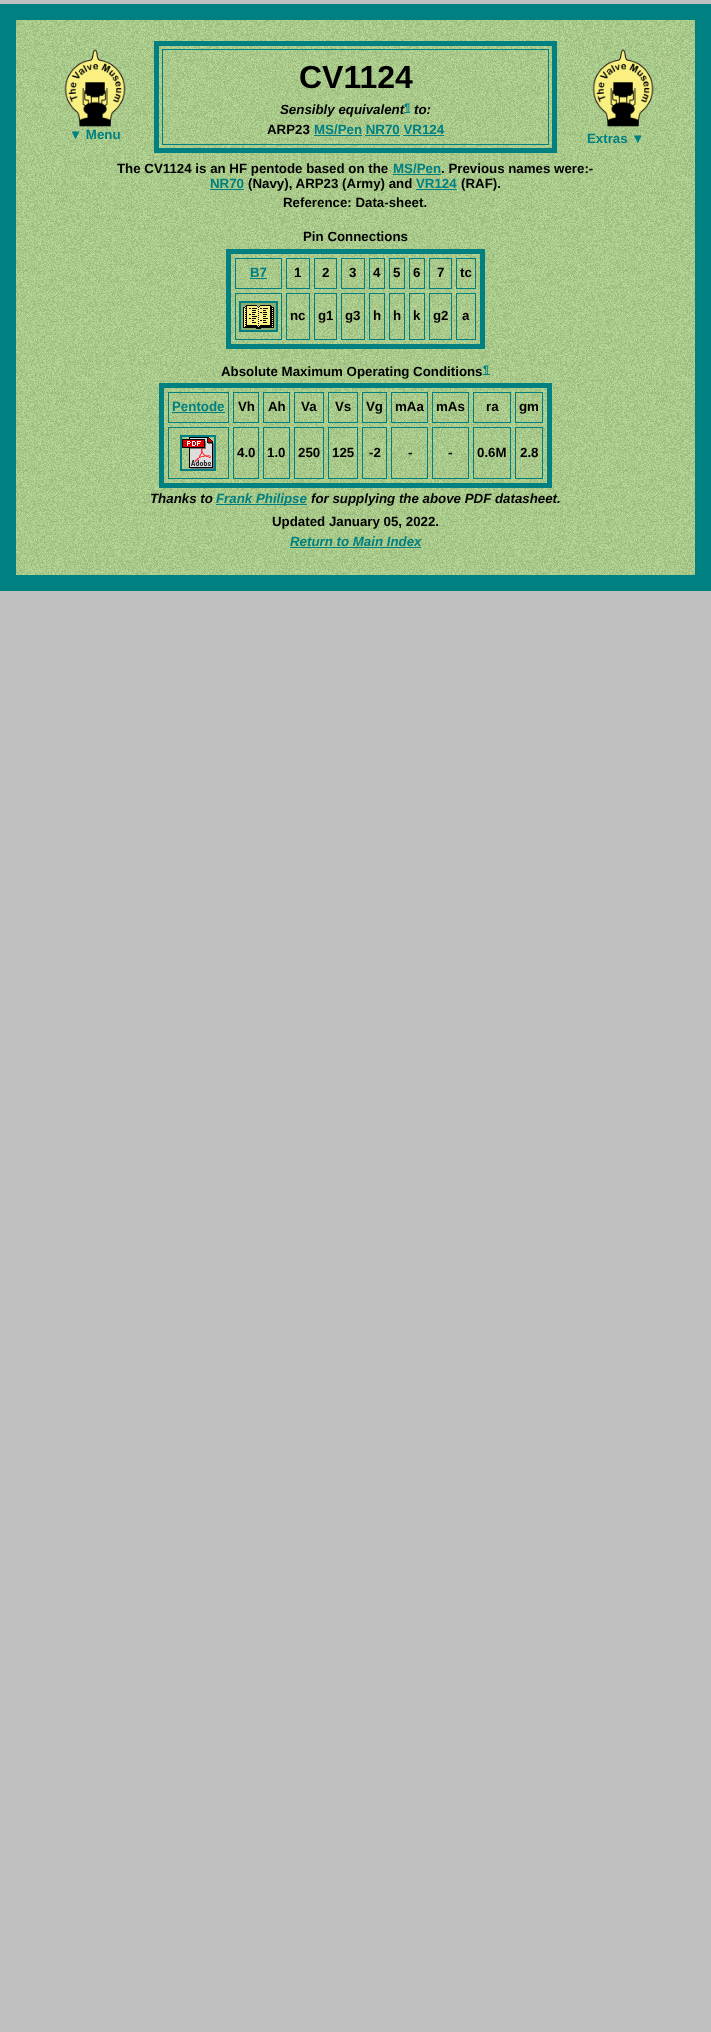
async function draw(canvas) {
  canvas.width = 711;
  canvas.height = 2032;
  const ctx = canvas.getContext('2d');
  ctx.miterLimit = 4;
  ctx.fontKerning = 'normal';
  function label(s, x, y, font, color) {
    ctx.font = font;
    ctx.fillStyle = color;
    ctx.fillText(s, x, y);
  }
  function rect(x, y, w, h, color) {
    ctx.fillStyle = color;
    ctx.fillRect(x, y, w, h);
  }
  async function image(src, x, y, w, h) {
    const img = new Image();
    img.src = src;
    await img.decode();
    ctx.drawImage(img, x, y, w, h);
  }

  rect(0, 0, 711, 2032, '#c0c0c0');
  ctx.strokeStyle = '#008080';
  ctx.lineWidth = 15;
  ctx.strokeRect(7.5, 11.5, 696, 572);
  ctx.lineWidth = 1;
  ctx.strokeRect(15.5, 19.5, 680, 556);
  await image('assets/img1.png', 16, 20, 679, 555);
  await image('assets/img2.png', 36, 40, 639, 114);
  await image('assets/img3.png', 64, 49, 62, 78);
  label('▼ Menu', 69, 139, 'bold 13.3px Liberation Sans', '#008080');
  await image('assets/img4.png', 159, 46, 393, 102);
  ctx.lineWidth = 5;
  ctx.strokeRect(156.5, 43.5, 398, 107);
  ctx.lineWidth = 1;
  ctx.strokeRect(162.5, 49.5, 386, 95);
  label('CV1124', 299, 88, 'bold 32px Liberation Sans', '#000');
  label('Sensibly equivalent', 280, 114, 'italic bold 13.3px Liberation Sans', '#000');
  rect(404, 112, 6, 1, '#008080');
  label('¶', 404, 111, 'italic bold 11px Liberation Sans', '#008080');
  label('to:', 414, 114, 'italic bold 13.3px Liberation Sans', '#000');
  label('ARP23', 267, 134, 'bold 13.3px Liberation Sans', '#000');
  label('MS/Pen NR70 VR124', 314, 134, 'bold 13.3px Liberation Sans', '#008080');
  rect(314, 135, 48, 1, '#008080');
  rect(365, 135, 35, 1, '#008080');
  rect(403, 135, 41, 1, '#008080');
  await image('assets/img5.png', 592, 49, 62, 78);
  label('Extras ▼', 587, 143, 'bold 13.3px Liberation Sans', '#008080');
  await image('assets/img6.png', 113, 154, 485, 4);
  await image('assets/img7.png', 113, 158, 485, 56);
  label('The CV1124 is an HF pentode based on the', 117, 173, 'bold 13.3px Liberation Sans', '#000');
  label('MS/Pen', 393, 173, 'bold 13.3px Liberation Sans', '#008080');
  rect(393, 174, 48, 1, '#008080');
  label('. Previous names were:-', 441, 173, 'bold 13.3px Liberation Sans', '#000');
  label('NR70', 210, 188, 'bold 13.3px Liberation Sans', '#008080');
  rect(210, 189, 34, 1, '#008080');
  label('(Navy), ARP23 (Army) and', 248, 188, 'bold 13.3px Liberation Sans', '#000');
  label('VR124', 416, 188, 'bold 13.3px Liberation Sans', '#008080');
  rect(416, 189, 41, 1, '#008080');
  label('(RAF).', 461, 188, 'bold 13.3px Liberation Sans', '#000');
  label('Reference: Data-sheet.', 283, 207, 'bold 13.3px Liberation Sans', '#000');
  await image('assets/img8.png', 113, 214, 485, 135);
  label('Pin Connections', 303, 241, 'bold 13.3px Liberation Sans', '#000');
  await image('assets/img9.png', 231, 254, 249, 90);
  ctx.lineWidth = 5;
  ctx.strokeRect(228.5, 251.5, 254, 95);
  ctx.lineWidth = 1;
  ctx.strokeRect(235.5, 258.5, 46, 30);
  label('B7', 250, 277, 'bold 13.3px Liberation Sans', '#008080');
  rect(250, 278, 17, 1, '#008080');
  ctx.strokeRect(286.5, 258.5, 23, 30);
  label('1', 294, 277, 'bold 13.3px Liberation Sans', '#000');
  ctx.strokeRect(314.5, 258.5, 22, 30);
  label('2', 322, 277, 'bold 13.3px Liberation Sans', '#000');
  ctx.strokeRect(341.5, 258.5, 23, 30);
  label('3', 349, 277, 'bold 13.3px Liberation Sans', '#000');
  ctx.strokeRect(369.5, 258.5, 15, 30);
  label('4', 373, 277, 'bold 13.3px Liberation Sans', '#000');
  ctx.strokeRect(389.5, 258.5, 15, 30);
  label('5', 393, 277, 'bold 13.3px Liberation Sans', '#000');
  ctx.strokeRect(409.5, 258.5, 15, 30);
  label('6', 413, 277, 'bold 13.3px Liberation Sans', '#000');
  ctx.strokeRect(429.5, 258.5, 22, 30);
  label('7', 437, 277, 'bold 13.3px Liberation Sans', '#000');
  ctx.strokeRect(456.5, 258.5, 19, 30);
  label('tc', 460, 277, 'bold 13.3px Liberation Sans', '#000');
  ctx.strokeRect(235.5, 293.5, 46, 46);
  ctx.lineWidth = 2;
  ctx.strokeRect(240, 302, 37, 29);
  await image('assets/img10.png', 241, 303, 35, 27);
  ctx.lineWidth = 1;
  ctx.strokeRect(286.5, 293.5, 23, 46);
  label('nc', 290, 320, 'bold 13.3px Liberation Sans', '#000');
  ctx.strokeRect(314.5, 293.5, 22, 46);
  label('g1', 318, 320, 'bold 13.3px Liberation Sans', '#000');
  ctx.strokeRect(341.5, 293.5, 23, 46);
  label('g3', 345, 320, 'bold 13.3px Liberation Sans', '#000');
  ctx.strokeRect(369.5, 293.5, 15, 46);
  label('h', 373, 320, 'bold 13.3px Liberation Sans', '#000');
  ctx.strokeRect(389.5, 293.5, 15, 46);
  label('h', 393, 320, 'bold 13.3px Liberation Sans', '#000');
  ctx.strokeRect(409.5, 293.5, 15, 46);
  label('k', 413, 320, 'bold 13.3px Liberation Sans', '#000');
  ctx.strokeRect(429.5, 293.5, 22, 46);
  label('g2', 433, 320, 'bold 13.3px Liberation Sans', '#000');
  ctx.strokeRect(456.5, 293.5, 19, 46);
  label('a', 462, 320, 'bold 13.3px Liberation Sans', '#000');
  await image('assets/img11.png', 113, 349, 485, 139);
  label('Absolute Maximum Operating Conditions', 221, 376, 'bold 13.3px Liberation Sans', '#000');
  rect(483, 374, 7, 1, '#008080');
  label('¶', 483, 373, 'bold 11px Liberation Sans', '#008080');
  await image('assets/img12.png', 164, 388, 383, 95);
  ctx.lineWidth = 5;
  ctx.strokeRect(161.5, 385.5, 388, 100);
  ctx.lineWidth = 1;
  ctx.strokeRect(168.5, 392.5, 60, 30);
  label('Pentode', 172, 411, 'bold 13.3px Liberation Sans', '#008080');
  rect(172, 412, 53, 1, '#008080');
  ctx.strokeRect(233.5, 392.5, 25, 30);
  label('Vh', 238, 411, 'bold 13.3px Liberation Sans', '#000');
  ctx.strokeRect(263.5, 392.5, 26, 30);
  label('Ah', 268, 411, 'bold 13.3px Liberation Sans', '#000');
  ctx.strokeRect(294.5, 392.5, 29, 30);
  label('Va', 301, 411, 'bold 13.3px Liberation Sans', '#000');
  ctx.strokeRect(328.5, 392.5, 29, 30);
  label('Vs', 335, 411, 'bold 13.3px Liberation Sans', '#000');
  ctx.strokeRect(362.5, 392.5, 24, 30);
  label('Vg', 366, 411, 'bold 13.3px Liberation Sans', '#000');
  ctx.strokeRect(391.5, 392.5, 36, 30);
  label('mAa', 395, 411, 'bold 13.3px Liberation Sans', '#000');
  ctx.strokeRect(432.5, 392.5, 36, 30);
  label('mAs', 436, 411, 'bold 13.3px Liberation Sans', '#000');
  ctx.strokeRect(473.5, 392.5, 37, 30);
  label('ra', 486, 411, 'bold 13.3px Liberation Sans', '#000');
  ctx.strokeRect(515.5, 392.5, 27, 30);
  label('gm', 519, 411, 'bold 13.3px Liberation Sans', '#000');
  ctx.strokeRect(168.5, 427.5, 60, 51);
  ctx.lineWidth = 2;
  ctx.strokeRect(181, 436, 34, 34);
  await image('assets/img13.png', 182, 437, 32, 32);
  ctx.lineWidth = 1;
  ctx.strokeRect(233.5, 427.5, 25, 51);
  label('4.0', 237, 457, 'bold 13.3px Liberation Sans', '#000');
  ctx.strokeRect(263.5, 427.5, 26, 51);
  label('1.0', 267, 457, 'bold 13.3px Liberation Sans', '#000');
  ctx.strokeRect(294.5, 427.5, 29, 51);
  label('250', 298, 457, 'bold 13.3px Liberation Sans', '#000');
  ctx.strokeRect(328.5, 427.5, 29, 51);
  label('125', 332, 457, 'bold 13.3px Liberation Sans', '#000');
  ctx.strokeRect(362.5, 427.5, 24, 51);
  label('-2', 369, 457, 'bold 13.3px Liberation Sans', '#000');
  ctx.strokeRect(391.5, 427.5, 36, 51);
  label('-', 408, 457, 'bold 13.3px Liberation Sans', '#000');
  ctx.strokeRect(432.5, 427.5, 36, 51);
  label('-', 448, 457, 'bold 13.3px Liberation Sans', '#000');
  ctx.strokeRect(473.5, 427.5, 37, 51);
  label('0.6M', 477, 457, 'bold 13.3px Liberation Sans', '#000');
  ctx.strokeRect(515.5, 427.5, 27, 51);
  label('2.8', 520, 457, 'bold 13.3px Liberation Sans', '#000');
  await image('assets/img14.png', 113, 488, 485, 23);
  label('Thanks to', 150, 503, 'italic bold 13.3px Liberation Sans', '#000');
  rect(216, 504, 91, 1, '#008080');
  label('Frank Philipse', 216, 503, 'italic bold 13.3px Liberation Sans', '#008080');
  label('for supplying the above PDF datasheet.', 311, 503, 'italic bold 13.3px Liberation Sans', '#000');
  label('Updated January 05, 2022.', 272, 526, 'bold 13.3px Liberation Sans', '#000');
  label('Return to Main Index', 290, 546, 'italic bold 13.3px Liberation Sans', '#008080');
  rect(290, 547, 131, 1, '#008080');
}

draw(document.querySelector('canvas'));
